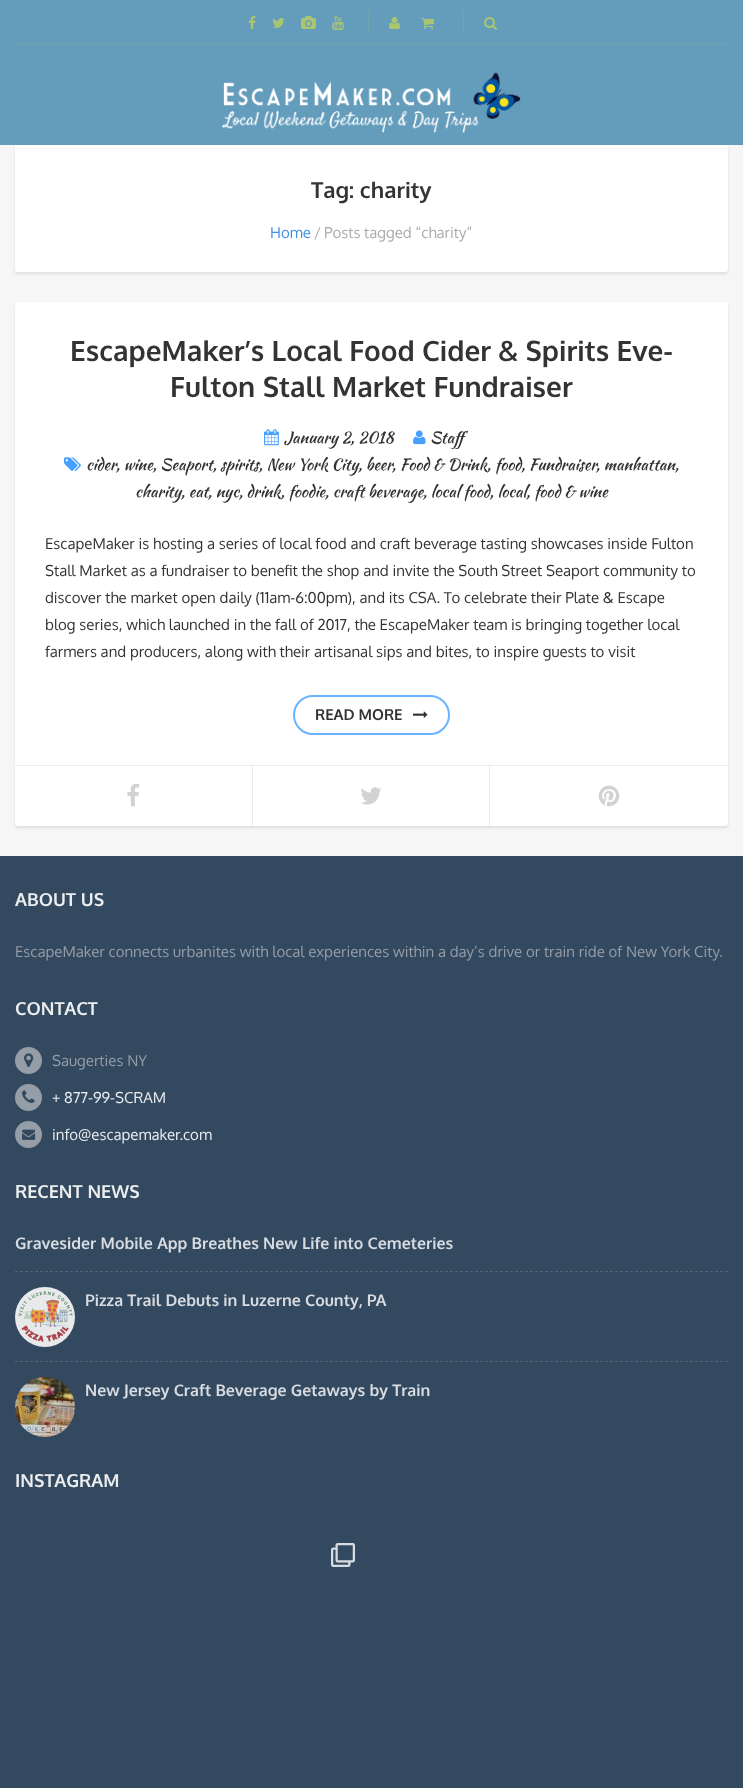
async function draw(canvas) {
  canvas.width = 743;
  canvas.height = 1788;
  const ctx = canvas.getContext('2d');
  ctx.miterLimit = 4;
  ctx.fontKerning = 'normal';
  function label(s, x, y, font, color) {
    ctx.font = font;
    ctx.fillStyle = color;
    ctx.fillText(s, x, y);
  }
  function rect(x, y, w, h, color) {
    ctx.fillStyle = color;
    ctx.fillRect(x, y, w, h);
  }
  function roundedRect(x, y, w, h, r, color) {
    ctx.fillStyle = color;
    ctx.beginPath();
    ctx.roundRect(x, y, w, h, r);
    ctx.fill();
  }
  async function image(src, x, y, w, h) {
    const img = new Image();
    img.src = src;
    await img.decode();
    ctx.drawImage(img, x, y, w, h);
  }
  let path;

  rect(0, 0, 743, 1788, '#f6f6f6');
  rect(0, 0, 743, 145, '#649cbc');
  await image('assets/img1.png', 248, 16, 8, 13);
  await image('assets/img2.png', 272, 18, 13, 10);
  await image('assets/img3.png', 301, 16, 15, 13);
  await image('assets/img4.png', 332, 16, 12, 14);
  rect(368, 10, 1, 25, '#72a4ad');
  await image('assets/img5.png', 389, 17, 11, 12);
  await image('assets/img6.png', 421, 18, 13, 11);
  rect(463, 10, 1, 25, '#72a4ad');
  await image('assets/img7.png', 484, 17, 13, 13);
  rect(15, 44, 713, 1, '#72a4ad');
  await image('assets/img8.png', 222, 72, 299, 61);
  ctx.fillStyle = '#00000017';
  ctx.filter = 'blur(1.5px)';
  ctx.beginPath();
  ctx.roundRect(15, 147, 713, 127, 3);
  ctx.fill();
  ctx.filter = 'none';
  ctx.fillStyle = '#fff';
  ctx.beginPath();
  ctx.roundRect(15, 145, 713, 127, [0, 0, 3, 3]);
  ctx.fill();
  label('Tag: charity', 311, 198, 'bold 22px Oxygen', '#333');
  label('Home', 270, 238, '15px Oxygen', '#4090e5');
  label('/', 314, 238, '15px Oxygen', '#ababab');
  label('Posts tagged “charity”', 324, 238, '15px Oxygen', '#ababab');
  ctx.fillStyle = '#00000017';
  ctx.filter = 'blur(1.5px)';
  ctx.beginPath();
  ctx.roundRect(15, 304, 713, 524, 3);
  ctx.fill();
  ctx.filter = 'none';
  roundedRect(15, 302, 713, 524, 3, '#fff');
  label('EscapeMaker’s Local Food Cider & Spirits Eve-', 70, 361, 'bold 28px Oxygen', '#333');
  label('Fulton Stall Market Fundraiser', 170, 397, 'bold 28px Oxygen', '#333');
  await image('assets/img9.png', 264, 429, 15, 17);
  label('January 2, 2018', 284, 443, '16px Kaushan Script', '#333');
  await image('assets/img10.png', 413, 430, 13, 15);
  label('Staff', 430, 443, '16px Kaushan Script', '#333');
  await image('assets/img11.png', 64, 457, 17, 14);
  label('cider', 86, 470, '16px Kaushan Script', '#333');
  label(', wine, Seaport, spirits, New York City, beer', 116, 470, '16px Kaushan Script', '#333');
  label(', Food & Drink, food, Fundraiser', 392, 470, '16px Kaushan Script', '#333');
  label(', manhattan,', 596, 470, '16px Kaushan Script', '#333');
  label('charity, eat, nyc, drink, foodie, craft beverage, local food, local, food & wine', 135, 497, '16px Kaushan Script', '#333');
  label('EscapeMaker is hosting a series of local food and craft beverage tasting showcases inside Fulton', 45, 549, '15px Oxygen', '#333');
  label('Stall Market as a fundraiser to benefit the shop and invite the South Street Seaport community to', 45, 576, '15px Oxygen', '#333');
  label('discover the market open daily (11am-6:00pm), and its CSA. To celebrate their Plate & Escape', 45, 603, '15px Oxygen', '#333');
  label('blog series, which launched in the fall of 2017, the EscapeMaker team is bringing together local', 45, 630, '15px Oxygen', '#333');
  label('farmers and producers, along with their artisanal sips and bites, to inspire guests to visit', 45, 657, '15px Oxygen', '#333');
  ctx.beginPath();
  ctx.roundRect(294, 696, 155, 38, 19);
  ctx.strokeStyle = '#6cb3ff';
  ctx.lineWidth = 2;
  ctx.stroke();
  label('READ MORE', 315, 720, 'bold 15px Oxygen', '#333');
  await image('assets/img12.png', 413, 711, 15, 7);
  rect(15, 765, 713, 1, '#ebebeb');
  rect(252, 766, 1, 60, '#ebebeb');
  await image('assets/img13.png', 127, 784, 12, 23);
  rect(489, 766, 1, 60, '#ebebeb');
  await image('assets/img14.png', 361, 787, 21, 18);
  await image('assets/img15.png', 598, 785, 22, 22);
  rect(0, 856, 743, 932, '#334960');
  label('ABOUT US', 15, 906, 'bold 18px Oxygen', '#ebedef');
  label('EscapeMaker connects urbanites with local experiences within a day’s drive or train ride of New York City.', 15, 957, '15px Oxygen', '#959da7');
  label('CONTACT', 15, 1015, 'bold 18px Oxygen', '#ebedef');
  ctx.fillStyle = '#959da7';
  ctx.beginPath();
  ctx.arc(28.5, 1060.5, 13.5, 0, 2 * Math.PI);
  ctx.fill();
  await image('assets/img16.png', 24, 1053, 10, 15);
  label('Saugerties NY', 52, 1066, '15px Oxygen', '#959da7');
  ctx.beginPath();
  ctx.arc(28.5, 1097.5, 13.5, 0, 2 * Math.PI);
  ctx.fill();
  await image('assets/img17.png', 22, 1090, 13, 13);
  label('+ 877-99-SCRAM', 52, 1103, '15px Oxygen', '#ebedef');
  ctx.fillStyle = '#959da7';
  ctx.beginPath();
  ctx.arc(28.5, 1134.5, 13.5, 0, 2 * Math.PI);
  ctx.fill();
  await image('assets/img18.png', 22, 1129, 14, 11);
  label('info@escapemaker.com', 52, 1140, '15px Oxygen', '#ebedef');
  label('RECENT NEWS', 15, 1198, 'bold 18px Oxygen', '#ebedef');
  label('Gravesider Mobile App Breathes New Life into Cemeteries', 15, 1249, 'bold 16px Oxygen', '#d8dce1');
  path = new Path2D('M15 1271.5H728');
  ctx.strokeStyle = '#506275';
  ctx.lineWidth = 1;
  ctx.setLineDash([3, 2]);
  ctx.stroke(path);
  await image('assets/img19.png', 15, 1287, 60, 60);
  label('Pizza Trail Debuts in Luzerne County, PA', 85, 1306, 'bold 16px Oxygen', '#d8dce1');
  path = new Path2D('M15 1361.5H728');
  ctx.stroke(path);
  await image('assets/img20.png', 15, 1377, 60, 60);
  label('New Jersey Craft Beverage Getaways by Train', 85, 1396, 'bold 16px Oxygen', '#d8dce1');
  label('INSTAGRAM', 15, 1487, 'bold 18px Oxygen', '#ebedef');
  await image('assets/img21.png', 331, 1543, 24, 24);
}

draw(document.querySelector('canvas'));
